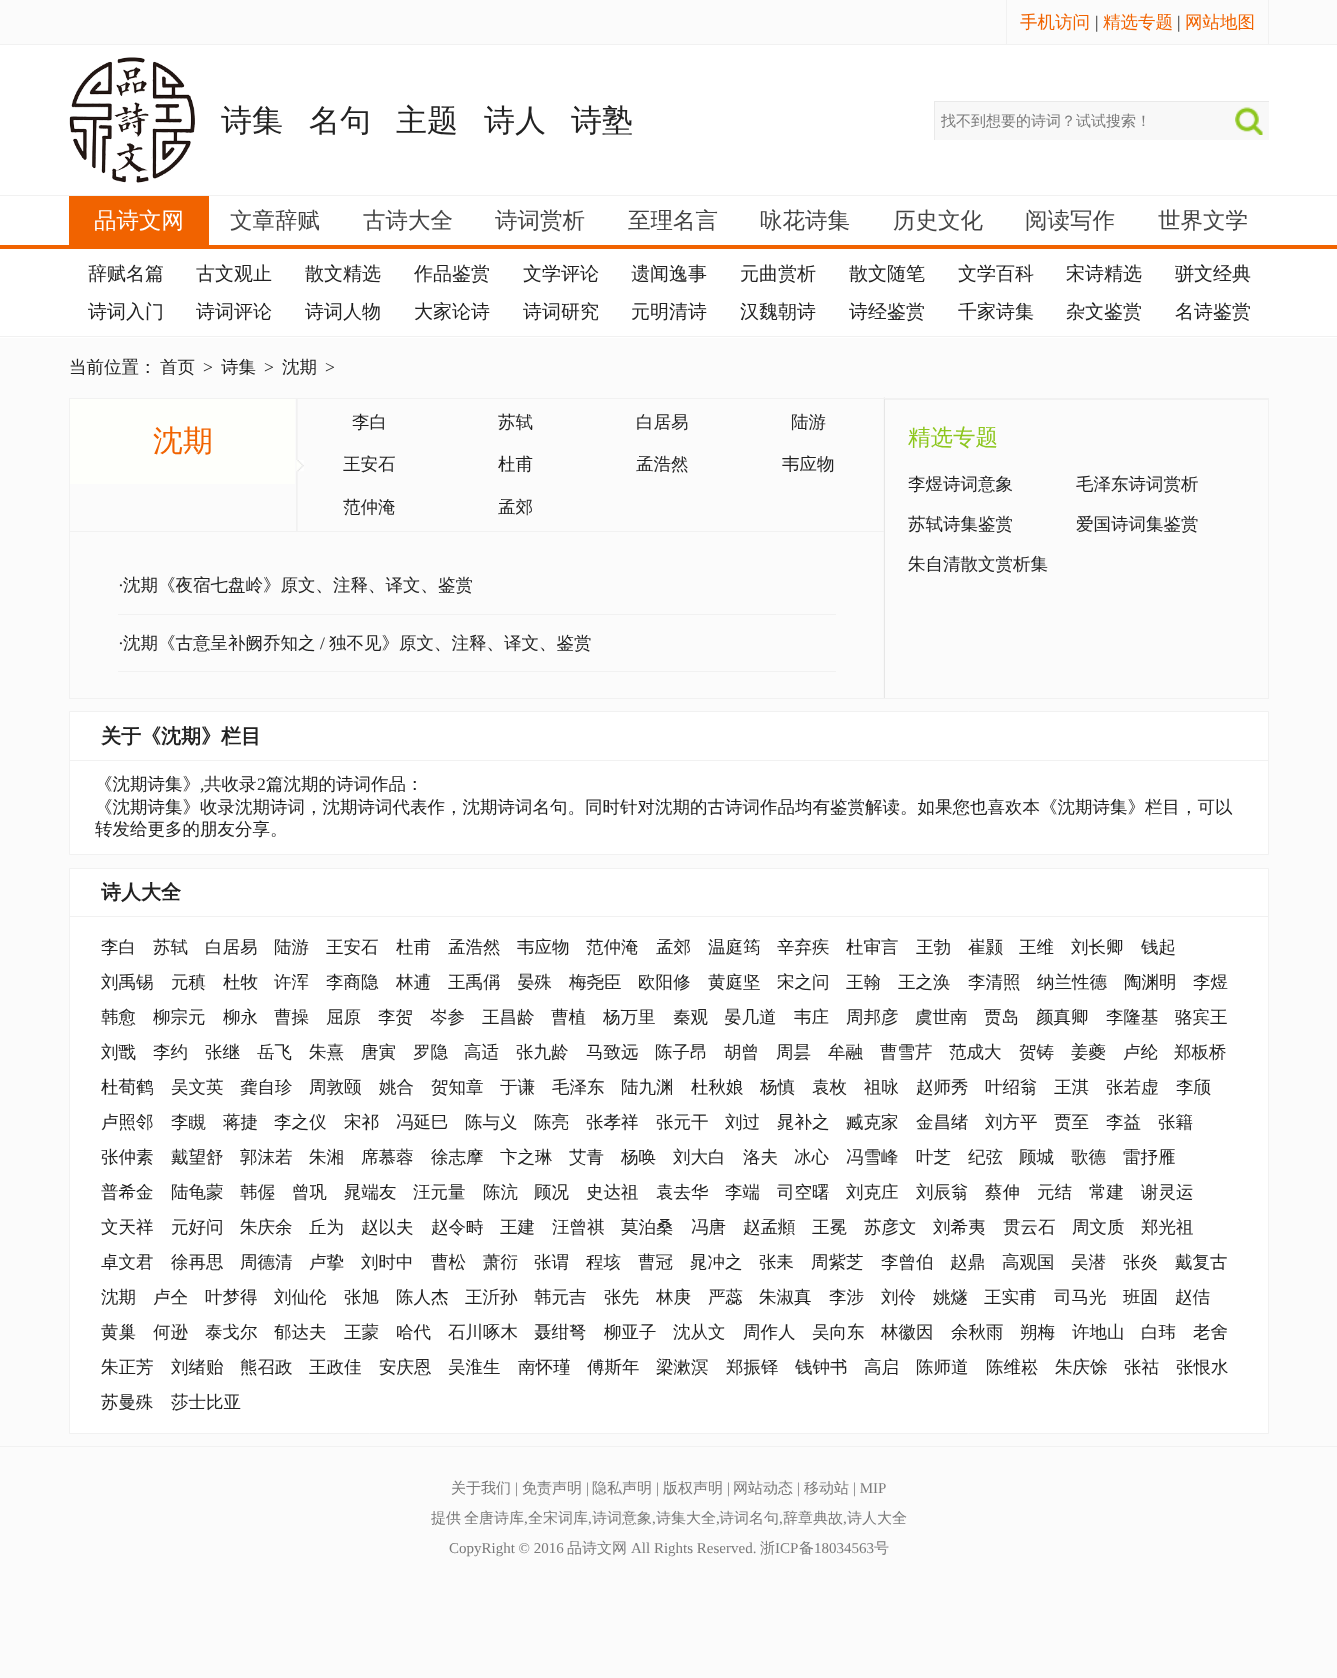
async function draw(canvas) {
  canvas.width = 1337;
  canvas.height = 1678;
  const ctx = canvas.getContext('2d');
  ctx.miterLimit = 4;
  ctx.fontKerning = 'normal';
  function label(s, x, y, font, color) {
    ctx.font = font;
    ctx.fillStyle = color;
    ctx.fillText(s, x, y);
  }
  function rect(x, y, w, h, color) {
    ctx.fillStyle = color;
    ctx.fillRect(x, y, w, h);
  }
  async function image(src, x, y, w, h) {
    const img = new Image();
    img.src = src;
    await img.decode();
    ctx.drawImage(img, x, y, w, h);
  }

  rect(0, 0, 1337, 1678, '#fbfbfb');
  rect(0, 44, 1337, 1, '#f1f1f1');
  rect(1268, 0, 1, 44, '#f1f1f1');
  rect(1006, 0, 1, 44, '#f1f1f1');
  label('手机访问', 1020, 28, '500 17.5px WenQuanYi Zen Hei', '#f16300');
  label('|', 1095, 28, '17.5px Liberation Serif', '#222');
  label('精选专题', 1103, 28, '500 17.5px WenQuanYi Zen Hei', '#f16300');
  label('|', 1177, 28, '17.5px Liberation Serif', '#222');
  label('网站地图', 1185, 28, '500 17.5px WenQuanYi Zen Hei', '#f16300');
  rect(0, 45, 1337, 150, '#fff');
  rect(0, 195, 1337, 1, '#f1f1f1');
  await image('assets/img1.png', 69, 57, 126, 126);
  label('诗集', 221, 131, '500 31px WenQuanYi Zen Hei', '#222');
  label('名句', 309, 131, '500 31px WenQuanYi Zen Hei', '#222');
  label('主题', 396, 131, '500 31px WenQuanYi Zen Hei', '#222');
  label('诗人', 484, 131, '500 31px WenQuanYi Zen Hei', '#222');
  label('诗塾', 571, 131, '500 31px WenQuanYi Zen Hei', '#222');
  rect(935, 102, 334, 38, '#f8f8f8');
  rect(934, 101, 335, 1, '#e9e9e9');
  rect(934, 101, 1, 39, '#e9e9e9');
  label('找不到想要的诗词？试试搜索！', 941, 126, '500 15px WenQuanYi Zen Hei', '#797979');
  await image('assets/img2.png', 1235, 107, 28, 28);
  rect(0, 196, 1337, 49, '#fff');
  rect(0, 245, 1337, 4, '#f16300');
  rect(69, 196, 140, 49, '#f16300');
  label('品诗文网', 94, 228, '500 22.5px WenQuanYi Zen Hei', '#fff');
  label('文章辞赋', 230, 228, '500 22.5px WenQuanYi Zen Hei', '#444');
  label('古诗大全', 363, 228, '500 22.5px WenQuanYi Zen Hei', '#444');
  label('诗词赏析', 495, 228, '500 22.5px WenQuanYi Zen Hei', '#444');
  label('至理名言', 628, 228, '500 22.5px WenQuanYi Zen Hei', '#444');
  label('咏花诗集', 760, 228, '500 22.5px WenQuanYi Zen Hei', '#444');
  label('历史文化', 893, 228, '500 22.5px WenQuanYi Zen Hei', '#444');
  label('阅读写作', 1025, 228, '500 22.5px WenQuanYi Zen Hei', '#444');
  label('世界文学', 1158, 228, '500 22.5px WenQuanYi Zen Hei', '#444');
  rect(0, 249, 1337, 89, '#fff');
  rect(0, 336, 1337, 1, '#f1f1f1');
  label('辞赋名篇', 88, 280, '500 19px WenQuanYi Zen Hei', '#222');
  label('古文观止', 196, 280, '500 19px WenQuanYi Zen Hei', '#222');
  label('散文精选', 305, 280, '500 19px WenQuanYi Zen Hei', '#222');
  label('作品鉴赏', 414, 280, '500 19px WenQuanYi Zen Hei', '#222');
  label('文学评论', 523, 280, '500 19px WenQuanYi Zen Hei', '#222');
  label('遗闻逸事', 631, 280, '500 19px WenQuanYi Zen Hei', '#222');
  label('元曲赏析', 740, 280, '500 19px WenQuanYi Zen Hei', '#222');
  label('散文随笔', 849, 280, '500 19px WenQuanYi Zen Hei', '#222');
  label('文学百科', 958, 280, '500 19px WenQuanYi Zen Hei', '#222');
  label('宋诗精选', 1066, 280, '500 19px WenQuanYi Zen Hei', '#222');
  label('骈文经典', 1175, 280, '500 19px WenQuanYi Zen Hei', '#222');
  label('诗词入门', 88, 318, '500 19px WenQuanYi Zen Hei', '#222');
  label('诗词评论', 196, 318, '500 19px WenQuanYi Zen Hei', '#222');
  label('诗词人物', 305, 318, '500 19px WenQuanYi Zen Hei', '#222');
  label('大家论诗', 414, 318, '500 19px WenQuanYi Zen Hei', '#222');
  label('诗词研究', 523, 318, '500 19px WenQuanYi Zen Hei', '#222');
  label('元明清诗', 631, 318, '500 19px WenQuanYi Zen Hei', '#222');
  label('汉魏朝诗', 740, 318, '500 19px WenQuanYi Zen Hei', '#222');
  label('诗经鉴赏', 849, 318, '500 19px WenQuanYi Zen Hei', '#222');
  label('千家诗集', 958, 318, '500 19px WenQuanYi Zen Hei', '#222');
  label('杂文鉴赏', 1066, 318, '500 19px WenQuanYi Zen Hei', '#222');
  label('名诗鉴赏', 1175, 318, '500 19px WenQuanYi Zen Hei', '#222');
  label('当前位置：', 69, 373, '500 17.5px WenQuanYi Zen Hei', '#222');
  label('首页', 160, 373, '500 17.5px WenQuanYi Zen Hei', '#222');
  label('>', 203, 373, '17.5px Liberation Serif', '#222');
  label('诗集', 221, 373, '500 17.5px WenQuanYi Zen Hei', '#222');
  label('>', 264, 373, '17.5px Liberation Serif', '#222');
  label('沈期', 282, 373, '500 17.5px WenQuanYi Zen Hei', '#222');
  label('>', 325, 373, '17.5px Liberation Serif', '#222');
  await image('assets/img3.png', 883, 397, 2, 301);
  ctx.strokeStyle = '#f1f1f1';
  ctx.strokeRect(69.5, 398.5, 1199, 300);
  rect(70, 531, 814, 1, '#f1f1f1');
  rect(70, 399, 225, 85, '#fefffb');
  label('沈期', 153, 451, '500 30px WenQuanYi Zen Hei', '#f16300');
  await image('assets/img4.png', 296, 399, 2, 132);
  await image('assets/img5.png', 296, 460, 8, 12);
  label('李白', 352, 428, '500 17.5px WenQuanYi Zen Hei', '#222');
  label('苏轼', 498, 428, '500 17.5px WenQuanYi Zen Hei', '#222');
  label('白居易', 636, 428, '500 17.5px WenQuanYi Zen Hei', '#222');
  label('陆游', 791, 428, '500 17.5px WenQuanYi Zen Hei', '#222');
  label('王安石', 343, 470, '500 17.5px WenQuanYi Zen Hei', '#222');
  label('杜甫', 498, 470, '500 17.5px WenQuanYi Zen Hei', '#222');
  label('孟浩然', 636, 470, '500 17.5px WenQuanYi Zen Hei', '#222');
  label('韦应物', 782, 470, '500 17.5px WenQuanYi Zen Hei', '#222');
  label('范仲淹', 343, 513, '500 17.5px WenQuanYi Zen Hei', '#222');
  label('孟郊', 498, 513, '500 17.5px WenQuanYi Zen Hei', '#222');
  rect(118, 614, 718, 1, '#f1f1f1');
  label('·', 118, 591, '17.5px Liberation Serif', '#222');
  label('沈期《夜宿七盘岭》原文、注释、译文、鉴赏', 123, 591, '500 17.5px WenQuanYi Zen Hei', '#222');
  rect(118, 671, 718, 1, '#f1f1f1');
  label('·', 118, 649, '17.5px Liberation Serif', '#222');
  label('沈期《古意呈补阙乔知之', 123, 649, '500 17.5px WenQuanYi Zen Hei', '#222');
  label('/', 320, 649, '17.5px Liberation Serif', '#222');
  label('独不见》原文、注释、译文、鉴赏', 329, 649, '500 17.5px WenQuanYi Zen Hei', '#222');
  rect(885, 399, 383, 1, '#f1f1f1');
  label('精选专题', 908, 445, '500 22.5px WenQuanYi Zen Hei', '#8dc61e');
  label('李煜诗词意象', 908, 490, '500 17.5px WenQuanYi Zen Hei', '#222');
  label('毛泽东诗词赏析', 1076, 490, '500 17.5px WenQuanYi Zen Hei', '#222');
  label('苏轼诗集鉴赏', 908, 530, '500 17.5px WenQuanYi Zen Hei', '#222');
  label('爱国诗词集鉴赏', 1076, 530, '500 17.5px WenQuanYi Zen Hei', '#222');
  label('朱自清散文赏析集', 908, 570, '500 17.5px WenQuanYi Zen Hei', '#222');
  ctx.fillStyle = '#fff';
  ctx.beginPath();
  ctx.rect(69.5, 711.5, 1199, 143);
  ctx.fill();
  ctx.stroke();
  rect(70, 760, 1198, 1, '#f1f1f1');
  label('关于《沈期》栏目', 101, 743, 'bold 20px WenQuanYi Zen Hei', '#222');
  label('《沈期诗集》', 95, 790, '500 17.5px WenQuanYi Zen Hei', '#222');
  label('共收录', 204, 790, '500 17.5px WenQuanYi Zen Hei', '#222');
  label('2', 257, 790, '17.5px Liberation Serif', '#222');
  label('篇沈期的诗词作品：', 266, 790, '500 17.5px WenQuanYi Zen Hei', '#222');
  label(',', 200, 790, '17.5px Liberation Serif', '#222');
  label('《沈期诗集》收录沈期诗词，沈期诗词代表作，沈期诗词名句。同时针对沈期的古诗词作品均有鉴赏解读。如果您也喜欢本《沈期诗集》栏目，可以', 95, 813, '500 17.5px WenQuanYi Zen Hei', '#222');
  label('转发给更多的朋友分享。', 95, 835, '500 17.5px WenQuanYi Zen Hei', '#222');
  ctx.fillStyle = '#fff';
  ctx.beginPath();
  ctx.rect(69.5, 868.5, 1199, 565);
  ctx.fill();
  ctx.stroke();
  rect(70, 916, 1198, 1, '#f1f1f1');
  label('诗人大全', 101, 899, 'bold 20px WenQuanYi Zen Hei', '#222');
  label('李白', 101, 953, '500 17.5px WenQuanYi Zen Hei', '#222');
  label('苏轼', 153, 953, '500 17.5px WenQuanYi Zen Hei', '#222');
  label('白居易', 205, 953, '500 17.5px WenQuanYi Zen Hei', '#222');
  label('陆游', 274, 953, '500 17.5px WenQuanYi Zen Hei', '#222');
  label('王安石', 326, 953, '500 17.5px WenQuanYi Zen Hei', '#222');
  label('杜甫', 396, 953, '500 17.5px WenQuanYi Zen Hei', '#222');
  label('孟浩然', 448, 953, '500 17.5px WenQuanYi Zen Hei', '#222');
  label('韦应物', 517, 953, '500 17.5px WenQuanYi Zen Hei', '#222');
  label('范仲淹', 586, 953, '500 17.5px WenQuanYi Zen Hei', '#222');
  label('孟郊', 656, 953, '500 17.5px WenQuanYi Zen Hei', '#222');
  label('温庭筠', 708, 953, '500 17.5px WenQuanYi Zen Hei', '#222');
  label('辛弃疾', 777, 953, '500 17.5px WenQuanYi Zen Hei', '#222');
  label('杜审言', 846, 953, '500 17.5px WenQuanYi Zen Hei', '#222');
  label('王勃', 916, 953, '500 17.5px WenQuanYi Zen Hei', '#222');
  label('崔颢', 968, 953, '500 17.5px WenQuanYi Zen Hei', '#222');
  label('王维', 1019, 953, '500 17.5px WenQuanYi Zen Hei', '#222');
  label('刘长卿', 1071, 953, '500 17.5px WenQuanYi Zen Hei', '#222');
  label('钱起', 1141, 953, '500 17.5px WenQuanYi Zen Hei', '#222');
  label('刘禹锡', 101, 988, '500 17.5px WenQuanYi Zen Hei', '#222');
  label('元稹', 171, 988, '500 17.5px WenQuanYi Zen Hei', '#222');
  label('杜牧', 223, 988, '500 17.5px WenQuanYi Zen Hei', '#222');
  label('许浑', 274, 988, '500 17.5px WenQuanYi Zen Hei', '#222');
  label('李商隐', 326, 988, '500 17.5px WenQuanYi Zen Hei', '#222');
  label('林逋', 396, 988, '500 17.5px WenQuanYi Zen Hei', '#222');
  label('王禹偁', 448, 988, '500 17.5px WenQuanYi Zen Hei', '#222');
  label('晏殊', 517, 988, '500 17.5px WenQuanYi Zen Hei', '#222');
  label('梅尧臣', 569, 988, '500 17.5px WenQuanYi Zen Hei', '#222');
  label('欧阳修', 638, 988, '500 17.5px WenQuanYi Zen Hei', '#222');
  label('黄庭坚', 708, 988, '500 17.5px WenQuanYi Zen Hei', '#222');
  label('宋之问', 777, 988, '500 17.5px WenQuanYi Zen Hei', '#222');
  label('王翰', 846, 988, '500 17.5px WenQuanYi Zen Hei', '#222');
  label('王之涣', 898, 988, '500 17.5px WenQuanYi Zen Hei', '#222');
  label('李清照', 968, 988, '500 17.5px WenQuanYi Zen Hei', '#222');
  label('纳兰性德', 1037, 988, '500 17.5px WenQuanYi Zen Hei', '#222');
  label('陶渊明', 1124, 988, '500 17.5px WenQuanYi Zen Hei', '#222');
  label('李煜', 1193, 988, '500 17.5px WenQuanYi Zen Hei', '#222');
  label('韩愈', 101, 1023, '500 17.5px WenQuanYi Zen Hei', '#222');
  label('柳宗元', 153, 1023, '500 17.5px WenQuanYi Zen Hei', '#222');
  label('柳永', 223, 1023, '500 17.5px WenQuanYi Zen Hei', '#222');
  label('曹操', 274, 1023, '500 17.5px WenQuanYi Zen Hei', '#222');
  label('屈原', 326, 1023, '500 17.5px WenQuanYi Zen Hei', '#222');
  label('李贺', 378, 1023, '500 17.5px WenQuanYi Zen Hei', '#222');
  label('岑参', 430, 1023, '500 17.5px WenQuanYi Zen Hei', '#222');
  label('王昌龄', 482, 1023, '500 17.5px WenQuanYi Zen Hei', '#222');
  label('曹植', 551, 1023, '500 17.5px WenQuanYi Zen Hei', '#222');
  label('杨万里', 603, 1023, '500 17.5px WenQuanYi Zen Hei', '#222');
  label('秦观', 673, 1023, '500 17.5px WenQuanYi Zen Hei', '#222');
  label('晏几道', 724, 1023, '500 17.5px WenQuanYi Zen Hei', '#222');
  label('韦庄', 794, 1023, '500 17.5px WenQuanYi Zen Hei', '#222');
  label('周邦彦', 846, 1023, '500 17.5px WenQuanYi Zen Hei', '#222');
  label('虞世南', 915, 1023, '500 17.5px WenQuanYi Zen Hei', '#222');
  label('贾岛', 984, 1023, '500 17.5px WenQuanYi Zen Hei', '#222');
  label('颜真卿', 1036, 1023, '500 17.5px WenQuanYi Zen Hei', '#222');
  label('李隆基', 1106, 1023, '500 17.5px WenQuanYi Zen Hei', '#222');
  label('骆宾王', 1175, 1023, '500 17.5px WenQuanYi Zen Hei', '#222');
  label('刘戬', 101, 1058, '500 17.5px WenQuanYi Zen Hei', '#222');
  label('李约', 153, 1058, '500 17.5px WenQuanYi Zen Hei', '#222');
  label('张继', 205, 1058, '500 17.5px WenQuanYi Zen Hei', '#222');
  label('岳飞', 257, 1058, '500 17.5px WenQuanYi Zen Hei', '#222');
  label('朱熹', 309, 1058, '500 17.5px WenQuanYi Zen Hei', '#222');
  label('唐寅', 361, 1058, '500 17.5px WenQuanYi Zen Hei', '#222');
  label('罗隐', 413, 1058, '500 17.5px WenQuanYi Zen Hei', '#222');
  label('高适', 464, 1058, '500 17.5px WenQuanYi Zen Hei', '#222');
  label('张九龄', 516, 1058, '500 17.5px WenQuanYi Zen Hei', '#222');
  label('马致远', 586, 1058, '500 17.5px WenQuanYi Zen Hei', '#222');
  label('陈子昂', 655, 1058, '500 17.5px WenQuanYi Zen Hei', '#222');
  label('胡曾', 724, 1058, '500 17.5px WenQuanYi Zen Hei', '#222');
  label('周昙', 776, 1058, '500 17.5px WenQuanYi Zen Hei', '#222');
  label('牟融', 828, 1058, '500 17.5px WenQuanYi Zen Hei', '#222');
  label('曹雪芹', 880, 1058, '500 17.5px WenQuanYi Zen Hei', '#222');
  label('范成大', 949, 1058, '500 17.5px WenQuanYi Zen Hei', '#222');
  label('贺铸', 1019, 1058, '500 17.5px WenQuanYi Zen Hei', '#222');
  label('姜夔', 1071, 1058, '500 17.5px WenQuanYi Zen Hei', '#222');
  label('卢纶', 1123, 1058, '500 17.5px WenQuanYi Zen Hei', '#222');
  label('郑板桥', 1174, 1058, '500 17.5px WenQuanYi Zen Hei', '#222');
  label('杜荀鹤', 101, 1093, '500 17.5px WenQuanYi Zen Hei', '#222');
  label('吴文英', 171, 1093, '500 17.5px WenQuanYi Zen Hei', '#222');
  label('龚自珍', 240, 1093, '500 17.5px WenQuanYi Zen Hei', '#222');
  label('周敦颐', 309, 1093, '500 17.5px WenQuanYi Zen Hei', '#222');
  label('姚合', 379, 1093, '500 17.5px WenQuanYi Zen Hei', '#222');
  label('贺知章', 431, 1093, '500 17.5px WenQuanYi Zen Hei', '#222');
  label('于谦', 500, 1093, '500 17.5px WenQuanYi Zen Hei', '#222');
  label('毛泽东', 552, 1093, '500 17.5px WenQuanYi Zen Hei', '#222');
  label('陆九渊', 621, 1093, '500 17.5px WenQuanYi Zen Hei', '#222');
  label('杜秋娘', 691, 1093, '500 17.5px WenQuanYi Zen Hei', '#222');
  label('杨慎', 760, 1093, '500 17.5px WenQuanYi Zen Hei', '#222');
  label('袁枚', 812, 1093, '500 17.5px WenQuanYi Zen Hei', '#222');
  label('祖咏', 864, 1093, '500 17.5px WenQuanYi Zen Hei', '#222');
  label('赵师秀', 916, 1093, '500 17.5px WenQuanYi Zen Hei', '#222');
  label('叶绍翁', 985, 1093, '500 17.5px WenQuanYi Zen Hei', '#222');
  label('王淇', 1054, 1093, '500 17.5px WenQuanYi Zen Hei', '#222');
  label('张若虚', 1106, 1093, '500 17.5px WenQuanYi Zen Hei', '#222');
  label('李颀', 1176, 1093, '500 17.5px WenQuanYi Zen Hei', '#222');
  label('卢照邻', 101, 1128, '500 17.5px WenQuanYi Zen Hei', '#222');
  label('李瞡', 171, 1128, '500 17.5px WenQuanYi Zen Hei', '#222');
  label('蒋捷', 223, 1128, '500 17.5px WenQuanYi Zen Hei', '#222');
  label('李之仪', 274, 1128, '500 17.5px WenQuanYi Zen Hei', '#222');
  label('宋祁', 344, 1128, '500 17.5px WenQuanYi Zen Hei', '#222');
  label('冯延巳', 396, 1128, '500 17.5px WenQuanYi Zen Hei', '#222');
  label('陈与义', 465, 1128, '500 17.5px WenQuanYi Zen Hei', '#222');
  label('陈亮', 534, 1128, '500 17.5px WenQuanYi Zen Hei', '#222');
  label('张孝祥', 586, 1128, '500 17.5px WenQuanYi Zen Hei', '#222');
  label('张元干', 656, 1128, '500 17.5px WenQuanYi Zen Hei', '#222');
  label('刘过', 725, 1128, '500 17.5px WenQuanYi Zen Hei', '#222');
  label('晁补之', 777, 1128, '500 17.5px WenQuanYi Zen Hei', '#222');
  label('臧克家', 846, 1128, '500 17.5px WenQuanYi Zen Hei', '#222');
  label('金昌绪', 916, 1128, '500 17.5px WenQuanYi Zen Hei', '#222');
  label('刘方平', 985, 1128, '500 17.5px WenQuanYi Zen Hei', '#222');
  label('贾至', 1054, 1128, '500 17.5px WenQuanYi Zen Hei', '#222');
  label('李益', 1106, 1128, '500 17.5px WenQuanYi Zen Hei', '#222');
  label('张籍', 1158, 1128, '500 17.5px WenQuanYi Zen Hei', '#222');
  label('张仲素', 101, 1163, '500 17.5px WenQuanYi Zen Hei', '#222');
  label('戴望舒', 171, 1163, '500 17.5px WenQuanYi Zen Hei', '#222');
  label('郭沫若', 240, 1163, '500 17.5px WenQuanYi Zen Hei', '#222');
  label('朱湘', 309, 1163, '500 17.5px WenQuanYi Zen Hei', '#222');
  label('席慕蓉', 361, 1163, '500 17.5px WenQuanYi Zen Hei', '#222');
  label('徐志摩', 431, 1163, '500 17.5px WenQuanYi Zen Hei', '#222');
  label('卞之琳', 500, 1163, '500 17.5px WenQuanYi Zen Hei', '#222');
  label('艾青', 569, 1163, '500 17.5px WenQuanYi Zen Hei', '#222');
  label('杨唤', 621, 1163, '500 17.5px WenQuanYi Zen Hei', '#222');
  label('刘大白', 673, 1163, '500 17.5px WenQuanYi Zen Hei', '#222');
  label('洛夫', 743, 1163, '500 17.5px WenQuanYi Zen Hei', '#222');
  label('冰心', 794, 1163, '500 17.5px WenQuanYi Zen Hei', '#222');
  label('冯雪峰', 846, 1163, '500 17.5px WenQuanYi Zen Hei', '#222');
  label('叶芝', 916, 1163, '500 17.5px WenQuanYi Zen Hei', '#222');
  label('纪弦', 968, 1163, '500 17.5px WenQuanYi Zen Hei', '#222');
  label('顾城', 1019, 1163, '500 17.5px WenQuanYi Zen Hei', '#222');
  label('歌德', 1071, 1163, '500 17.5px WenQuanYi Zen Hei', '#222');
  label('雷抒雁', 1123, 1163, '500 17.5px WenQuanYi Zen Hei', '#222');
  label('普希金', 101, 1198, '500 17.5px WenQuanYi Zen Hei', '#222');
  label('陆龟蒙', 171, 1198, '500 17.5px WenQuanYi Zen Hei', '#222');
  label('韩偓', 240, 1198, '500 17.5px WenQuanYi Zen Hei', '#222');
  label('曾巩', 292, 1198, '500 17.5px WenQuanYi Zen Hei', '#222');
  label('晁端友', 344, 1198, '500 17.5px WenQuanYi Zen Hei', '#222');
  label('汪元量', 413, 1198, '500 17.5px WenQuanYi Zen Hei', '#222');
  label('陈沆', 483, 1198, '500 17.5px WenQuanYi Zen Hei', '#222');
  label('顾况', 534, 1198, '500 17.5px WenQuanYi Zen Hei', '#222');
  label('史达祖', 586, 1198, '500 17.5px WenQuanYi Zen Hei', '#222');
  label('袁去华', 656, 1198, '500 17.5px WenQuanYi Zen Hei', '#222');
  label('李端', 725, 1198, '500 17.5px WenQuanYi Zen Hei', '#222');
  label('司空曙', 777, 1198, '500 17.5px WenQuanYi Zen Hei', '#222');
  label('刘克庄', 846, 1198, '500 17.5px WenQuanYi Zen Hei', '#222');
  label('刘辰翁', 916, 1198, '500 17.5px WenQuanYi Zen Hei', '#222');
  label('蔡伸', 985, 1198, '500 17.5px WenQuanYi Zen Hei', '#222');
  label('元结', 1037, 1198, '500 17.5px WenQuanYi Zen Hei', '#222');
  label('常建', 1089, 1198, '500 17.5px WenQuanYi Zen Hei', '#222');
  label('谢灵运', 1141, 1198, '500 17.5px WenQuanYi Zen Hei', '#222');
  label('文天祥', 101, 1233, '500 17.5px WenQuanYi Zen Hei', '#222');
  label('元好问', 171, 1233, '500 17.5px WenQuanYi Zen Hei', '#222');
  label('朱庆余', 240, 1233, '500 17.5px WenQuanYi Zen Hei', '#222');
  label('丘为', 309, 1233, '500 17.5px WenQuanYi Zen Hei', '#222');
  label('赵以夫', 361, 1233, '500 17.5px WenQuanYi Zen Hei', '#222');
  label('赵令畤', 431, 1233, '500 17.5px WenQuanYi Zen Hei', '#222');
  label('王建', 500, 1233, '500 17.5px WenQuanYi Zen Hei', '#222');
  label('汪曾祺', 552, 1233, '500 17.5px WenQuanYi Zen Hei', '#222');
  label('莫泊桑', 621, 1233, '500 17.5px WenQuanYi Zen Hei', '#222');
  label('冯唐', 691, 1233, '500 17.5px WenQuanYi Zen Hei', '#222');
  label('赵孟頫', 743, 1233, '500 17.5px WenQuanYi Zen Hei', '#222');
  label('王冕', 812, 1233, '500 17.5px WenQuanYi Zen Hei', '#222');
  label('苏彦文', 864, 1233, '500 17.5px WenQuanYi Zen Hei', '#222');
  label('刘希夷', 933, 1233, '500 17.5px WenQuanYi Zen Hei', '#222');
  label('贯云石', 1003, 1233, '500 17.5px WenQuanYi Zen Hei', '#222');
  label('周文质', 1072, 1233, '500 17.5px WenQuanYi Zen Hei', '#222');
  label('郑光祖', 1141, 1233, '500 17.5px WenQuanYi Zen Hei', '#222');
  label('卓文君', 101, 1268, '500 17.5px WenQuanYi Zen Hei', '#222');
  label('徐再思', 171, 1268, '500 17.5px WenQuanYi Zen Hei', '#222');
  label('周德清', 240, 1268, '500 17.5px WenQuanYi Zen Hei', '#222');
  label('卢挚', 309, 1268, '500 17.5px WenQuanYi Zen Hei', '#222');
  label('刘时中', 361, 1268, '500 17.5px WenQuanYi Zen Hei', '#222');
  label('曹松', 431, 1268, '500 17.5px WenQuanYi Zen Hei', '#222');
  label('萧衍', 483, 1268, '500 17.5px WenQuanYi Zen Hei', '#222');
  label('张谓', 534, 1268, '500 17.5px WenQuanYi Zen Hei', '#222');
  label('程垓', 586, 1268, '500 17.5px WenQuanYi Zen Hei', '#222');
  label('曹冠', 638, 1268, '500 17.5px WenQuanYi Zen Hei', '#222');
  label('晁冲之', 690, 1268, '500 17.5px WenQuanYi Zen Hei', '#222');
  label('张耒', 759, 1268, '500 17.5px WenQuanYi Zen Hei', '#222');
  label('周紫芝', 811, 1268, '500 17.5px WenQuanYi Zen Hei', '#222');
  label('李曾伯', 881, 1268, '500 17.5px WenQuanYi Zen Hei', '#222');
  label('赵鼎', 950, 1268, '500 17.5px WenQuanYi Zen Hei', '#222');
  label('高观国', 1002, 1268, '500 17.5px WenQuanYi Zen Hei', '#222');
  label('吴潜', 1071, 1268, '500 17.5px WenQuanYi Zen Hei', '#222');
  label('张炎', 1123, 1268, '500 17.5px WenQuanYi Zen Hei', '#222');
  label('戴复古', 1175, 1268, '500 17.5px WenQuanYi Zen Hei', '#222');
  label('沈期', 101, 1303, '500 17.5px WenQuanYi Zen Hei', '#222');
  label('卢仝', 153, 1303, '500 17.5px WenQuanYi Zen Hei', '#222');
  label('叶梦得', 205, 1303, '500 17.5px WenQuanYi Zen Hei', '#222');
  label('刘仙伦', 274, 1303, '500 17.5px WenQuanYi Zen Hei', '#222');
  label('张旭', 344, 1303, '500 17.5px WenQuanYi Zen Hei', '#222');
  label('陈人杰', 396, 1303, '500 17.5px WenQuanYi Zen Hei', '#222');
  label('王沂孙', 465, 1303, '500 17.5px WenQuanYi Zen Hei', '#222');
  label('韩元吉', 534, 1303, '500 17.5px WenQuanYi Zen Hei', '#222');
  label('张先', 604, 1303, '500 17.5px WenQuanYi Zen Hei', '#222');
  label('林庚', 656, 1303, '500 17.5px WenQuanYi Zen Hei', '#222');
  label('严蕊', 708, 1303, '500 17.5px WenQuanYi Zen Hei', '#222');
  label('朱淑真', 759, 1303, '500 17.5px WenQuanYi Zen Hei', '#222');
  label('李涉', 829, 1303, '500 17.5px WenQuanYi Zen Hei', '#222');
  label('刘伶', 881, 1303, '500 17.5px WenQuanYi Zen Hei', '#222');
  label('姚燧', 933, 1303, '500 17.5px WenQuanYi Zen Hei', '#222');
  label('王实甫', 984, 1303, '500 17.5px WenQuanYi Zen Hei', '#222');
  label('司马光', 1054, 1303, '500 17.5px WenQuanYi Zen Hei', '#222');
  label('班固', 1123, 1303, '500 17.5px WenQuanYi Zen Hei', '#222');
  label('赵佶', 1175, 1303, '500 17.5px WenQuanYi Zen Hei', '#222');
  label('黄巢', 101, 1338, '500 17.5px WenQuanYi Zen Hei', '#222');
  label('何逊', 153, 1338, '500 17.5px WenQuanYi Zen Hei', '#222');
  label('泰戈尔', 205, 1338, '500 17.5px WenQuanYi Zen Hei', '#222');
  label('郁达夫', 274, 1338, '500 17.5px WenQuanYi Zen Hei', '#222');
  label('王蒙', 344, 1338, '500 17.5px WenQuanYi Zen Hei', '#222');
  label('哈代', 396, 1338, '500 17.5px WenQuanYi Zen Hei', '#222');
  label('石川啄木', 448, 1338, '500 17.5px WenQuanYi Zen Hei', '#222');
  label('聂绀弩', 534, 1338, '500 17.5px WenQuanYi Zen Hei', '#222');
  label('柳亚子', 604, 1338, '500 17.5px WenQuanYi Zen Hei', '#222');
  label('沈从文', 673, 1338, '500 17.5px WenQuanYi Zen Hei', '#222');
  label('周作人', 743, 1338, '500 17.5px WenQuanYi Zen Hei', '#222');
  label('吴向东', 812, 1338, '500 17.5px WenQuanYi Zen Hei', '#222');
  label('林徽因', 881, 1338, '500 17.5px WenQuanYi Zen Hei', '#222');
  label('余秋雨', 951, 1338, '500 17.5px WenQuanYi Zen Hei', '#222');
  label('朔梅', 1020, 1338, '500 17.5px WenQuanYi Zen Hei', '#222');
  label('许地山', 1072, 1338, '500 17.5px WenQuanYi Zen Hei', '#222');
  label('白玮', 1141, 1338, '500 17.5px WenQuanYi Zen Hei', '#222');
  label('老舍', 1193, 1338, '500 17.5px WenQuanYi Zen Hei', '#222');
  label('朱正芳', 101, 1373, '500 17.5px WenQuanYi Zen Hei', '#222');
  label('刘绪贻', 171, 1373, '500 17.5px WenQuanYi Zen Hei', '#222');
  label('熊召政', 240, 1373, '500 17.5px WenQuanYi Zen Hei', '#222');
  label('王政佳', 309, 1373, '500 17.5px WenQuanYi Zen Hei', '#222');
  label('安庆恩', 379, 1373, '500 17.5px WenQuanYi Zen Hei', '#222');
  label('吴淮生', 448, 1373, '500 17.5px WenQuanYi Zen Hei', '#222');
  label('南怀瑾', 518, 1373, '500 17.5px WenQuanYi Zen Hei', '#222');
  label('傅斯年', 587, 1373, '500 17.5px WenQuanYi Zen Hei', '#222');
  label('梁漱溟', 656, 1373, '500 17.5px WenQuanYi Zen Hei', '#222');
  label('郑振铎', 726, 1373, '500 17.5px WenQuanYi Zen Hei', '#222');
  label('钱钟书', 795, 1373, '500 17.5px WenQuanYi Zen Hei', '#222');
  label('高启', 864, 1373, '500 17.5px WenQuanYi Zen Hei', '#222');
  label('陈师道', 916, 1373, '500 17.5px WenQuanYi Zen Hei', '#222');
  label('陈维崧', 986, 1373, '500 17.5px WenQuanYi Zen Hei', '#222');
  label('朱庆馀', 1055, 1373, '500 17.5px WenQuanYi Zen Hei', '#222');
  label('张祜', 1124, 1373, '500 17.5px WenQuanYi Zen Hei', '#222');
  label('张恨水', 1176, 1373, '500 17.5px WenQuanYi Zen Hei', '#222');
  label('苏曼殊', 101, 1408, '500 17.5px WenQuanYi Zen Hei', '#222');
  label('莎士比亚', 171, 1408, '500 17.5px WenQuanYi Zen Hei', '#222');
  rect(0, 1446, 1337, 1, '#f1f1f1');
  label('关于我们', 451, 1493, '500 15px WenQuanYi Zen Hei', '#797979');
  label('|', 515, 1493, '15px Liberation Serif', '#797979');
  label('免责声明', 522, 1493, '500 15px WenQuanYi Zen Hei', '#797979');
  label('|', 586, 1493, '15px Liberation Serif', '#797979');
  label('隐私声明', 592, 1493, '500 15px WenQuanYi Zen Hei', '#797979');
  label('|', 656, 1493, '15px Liberation Serif', '#797979');
  label('版权声明', 663, 1493, '500 15px WenQuanYi Zen Hei', '#797979');
  label('|', 727, 1493, '15px Liberation Serif', '#797979');
  label('网站动态', 733, 1493, '500 15px WenQuanYi Zen Hei', '#797979');
  label('|', 797, 1493, '15px Liberation Serif', '#797979');
  label('移动站', 804, 1493, '500 15px WenQuanYi Zen Hei', '#797979');
  label('| MIP', 853, 1493, '15px Liberation Serif', '#797979');
  label('提供', 431, 1523, '500 15px WenQuanYi Zen Hei', '#797979');
  label('全唐诗库', 464, 1523, '500 15px WenQuanYi Zen Hei', '#797979');
  label(',', 524, 1523, '15px Liberation Serif', '#797979');
  label('全宋词库', 528, 1523, '500 15px WenQuanYi Zen Hei', '#797979');
  label(',', 588, 1523, '15px Liberation Serif', '#797979');
  label('诗词意象', 592, 1523, '500 15px WenQuanYi Zen Hei', '#797979');
  label(',', 652, 1523, '15px Liberation Serif', '#797979');
  label('诗集大全', 656, 1523, '500 15px WenQuanYi Zen Hei', '#797979');
  label(',', 716, 1523, '15px Liberation Serif', '#797979');
  label('诗词名句', 719, 1523, '500 15px WenQuanYi Zen Hei', '#797979');
  label(',', 779, 1523, '15px Liberation Serif', '#797979');
  label('辞章典故', 783, 1523, '500 15px WenQuanYi Zen Hei', '#797979');
  label(',', 843, 1523, '15px Liberation Serif', '#797979');
  label('诗人大全', 847, 1523, '500 15px WenQuanYi Zen Hei', '#797979');
  label('CopyRight © 2016', 449, 1553, '15px Liberation Serif', '#797979');
  label('品诗文网', 567, 1553, '500 15px WenQuanYi Zen Hei', '#797979');
  label('All Rights Reserved.', 631, 1553, '15px Liberation Serif', '#797979');
  label('浙', 760, 1553, '500 15px WenQuanYi Zen Hei', '#797979');
  label('ICP', 775, 1553, '15px Liberation Serif', '#797979');
  label('备', 799, 1553, '500 15px WenQuanYi Zen Hei', '#797979');
  label('18034563', 814, 1553, '15px Liberation Serif', '#797979');
  label('号', 874, 1553, '500 15px WenQuanYi Zen Hei', '#797979');
}

draw(document.querySelector('canvas'));
